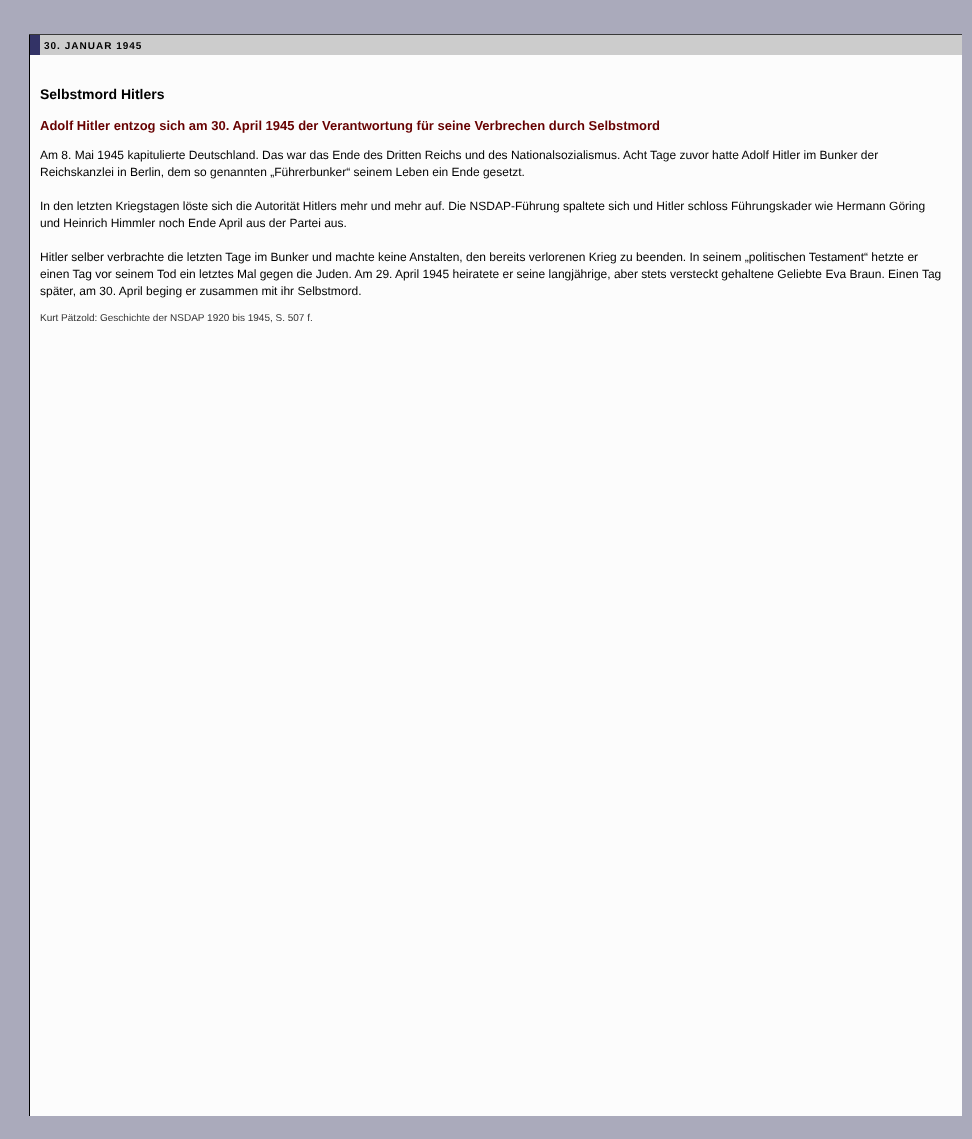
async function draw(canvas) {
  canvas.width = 972;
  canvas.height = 1139;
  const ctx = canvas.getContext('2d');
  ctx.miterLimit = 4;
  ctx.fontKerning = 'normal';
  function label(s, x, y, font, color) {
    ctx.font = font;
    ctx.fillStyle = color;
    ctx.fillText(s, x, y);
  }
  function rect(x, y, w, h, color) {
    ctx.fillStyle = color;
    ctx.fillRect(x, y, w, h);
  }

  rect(0, 0, 972, 1139, '#aab');
  rect(30, 55, 932, 1061, '#fcfcfc');
  rect(29, 34, 933, 1, '#393939');
  rect(29, 35, 1, 1081, '#000');
  rect(30, 35, 10, 20, '#336');
  rect(40, 35, 922, 20, '#ccc');
  ctx.letterSpacing = '1px';
  label('30. JANUAR 1945', 44, 49, 'bold 10px Liberation Sans', '#000');
  ctx.letterSpacing = '0px';
  label('Selbstmord Hitlers', 40, 99, 'bold 14px Liberation Sans', '#000');
  label('Adolf Hitler entzog sich am 30. April 1945 der Verantwortung für seine Verbrechen durch Selbstmord', 40, 130, 'bold 13px Liberation Sans', '#600');
  label('Am 8. Mai 1945 kapitulierte Deutschland. Das war das Ende des Dritten Reichs und des Nationalsozialismus. Acht Tage zuvor hatte Adolf Hitler im Bunker der', 40, 159, '12px Liberation Sans', '#000');
  label('Reichskanzlei in Berlin, dem so genannten „Führerbunker“ seinem Leben ein Ende gesetzt.', 40, 176, '12px Liberation Sans', '#000');
  label('In den letzten Kriegstagen löste sich die Autorität Hitlers mehr und mehr auf. Die NSDAP-Führung spaltete sich und Hitler schloss Führungskader wie Hermann Göring', 40, 210, '12px Liberation Sans', '#000');
  label('und Heinrich Himmler noch Ende April aus der Partei aus.', 40, 227, '12px Liberation Sans', '#000');
  label('Hitler selber verbrachte die letzten Tage im Bunker und machte keine Anstalten, den bereits verlorenen Krieg zu beenden. In seinem „politischen Testament“ hetzte er', 40, 261, '12px Liberation Sans', '#000');
  label('einen Tag vor seinem Tod ein letztes Mal gegen die Juden. Am 29. April 1945 heiratete er seine langjährige, aber stets versteckt gehaltene Geliebte Eva Braun. Einen Tag', 40, 278, '12px Liberation Sans', '#000');
  label('später, am 30. April beging er zusammen mit ihr Selbstmord.', 40, 295, '12px Liberation Sans', '#000');
  label('Kurt Pätzold: Geschichte der NSDAP 1920 bis 1945, S. 507 f.', 40, 321, '10px Liberation Sans', '#333');
}

draw(document.querySelector('canvas'));
